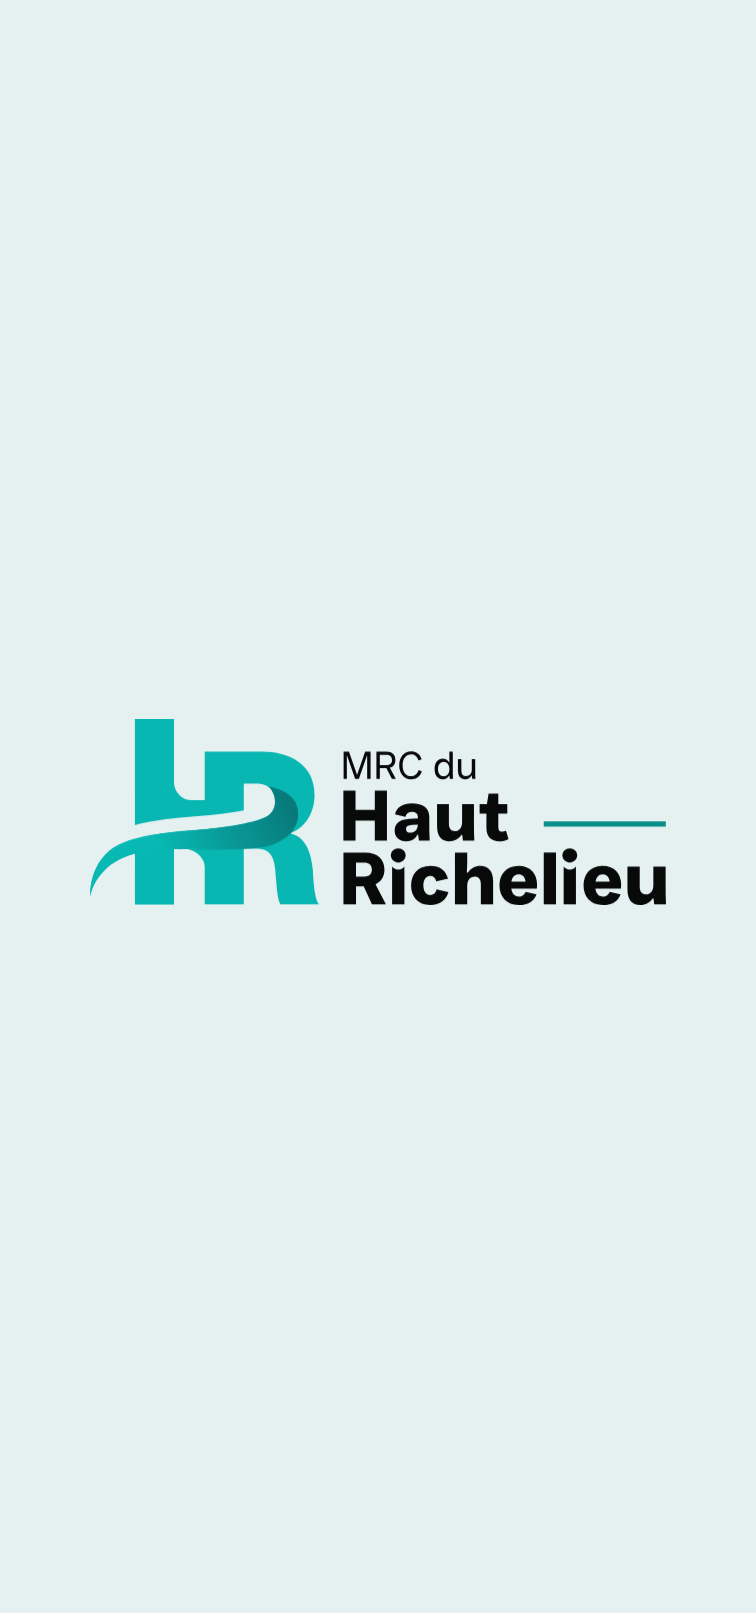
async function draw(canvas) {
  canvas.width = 756;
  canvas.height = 1613;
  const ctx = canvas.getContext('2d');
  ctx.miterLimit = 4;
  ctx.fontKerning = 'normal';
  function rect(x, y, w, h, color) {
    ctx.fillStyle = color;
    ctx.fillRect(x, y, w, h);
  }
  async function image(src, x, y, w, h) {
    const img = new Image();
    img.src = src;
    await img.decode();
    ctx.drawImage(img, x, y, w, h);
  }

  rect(0, 0, 756, 1613, '#e5f0f1');
  await image('assets/img1.png', 90, 719, 576, 186);
}

draw(document.querySelector('canvas'));
